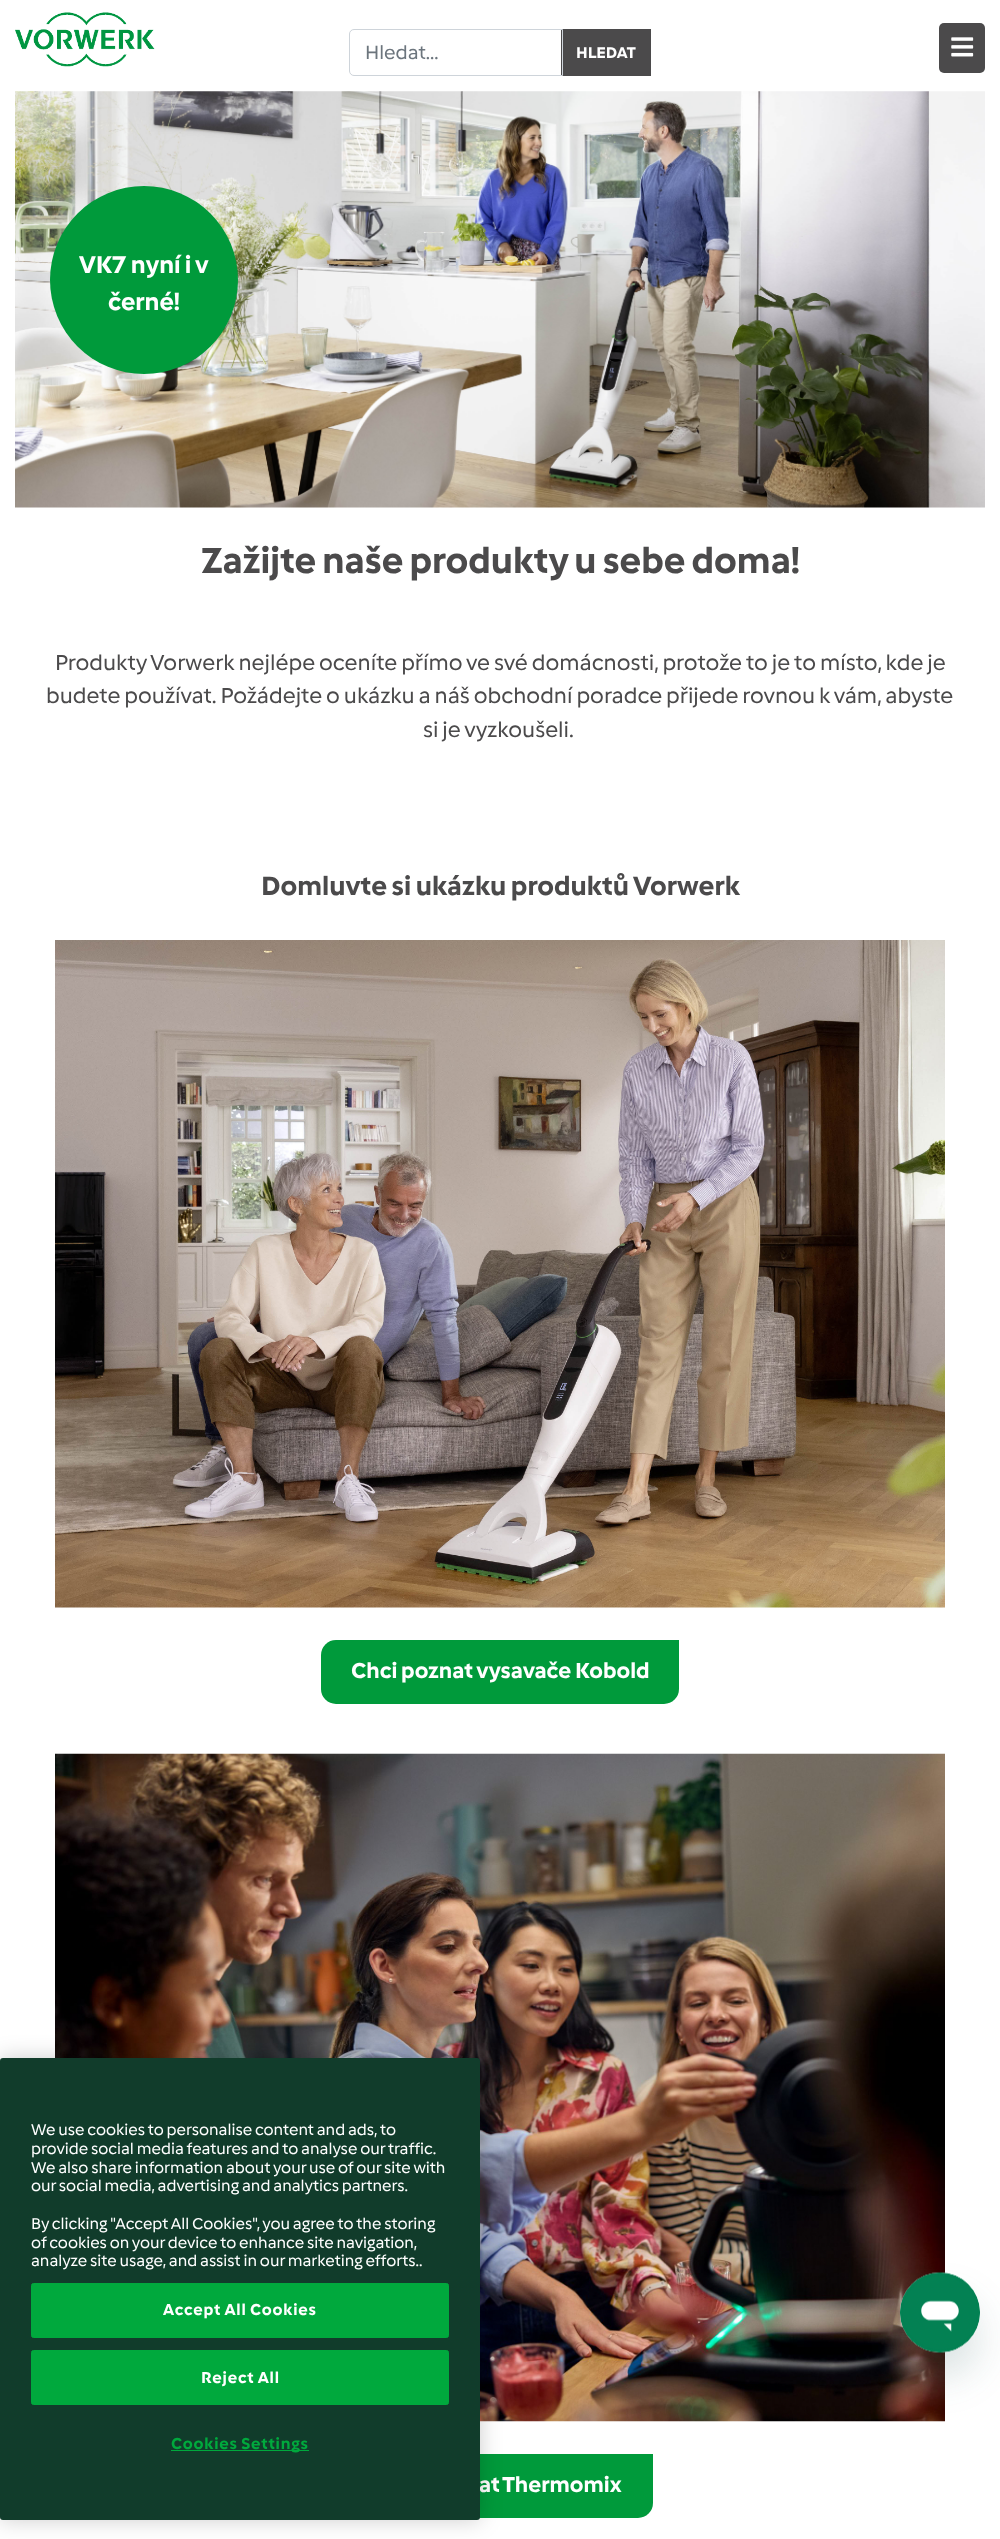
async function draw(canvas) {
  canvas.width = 1000;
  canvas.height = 2539;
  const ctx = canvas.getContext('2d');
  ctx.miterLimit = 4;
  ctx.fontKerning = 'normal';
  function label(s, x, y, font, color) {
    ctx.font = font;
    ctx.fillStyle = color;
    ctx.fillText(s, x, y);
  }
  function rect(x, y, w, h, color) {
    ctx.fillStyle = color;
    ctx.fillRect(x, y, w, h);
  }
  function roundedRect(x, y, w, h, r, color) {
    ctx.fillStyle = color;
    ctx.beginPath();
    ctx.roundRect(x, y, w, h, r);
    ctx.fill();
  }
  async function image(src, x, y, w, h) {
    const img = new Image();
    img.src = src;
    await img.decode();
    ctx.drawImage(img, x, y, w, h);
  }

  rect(0, 0, 1000, 2539, '#fff');
  await image('assets/img1.png', 15, 12, 140, 55);
  rect(561, 29, 90, 47, '#4b4a4b');
  ctx.beginPath();
  ctx.roundRect(349.5, 29.5, 213, 46, [4.5, 0, 0, 4.5]);
  ctx.strokeStyle = '#ced4da';
  ctx.stroke();
  label('Hledat...', 365, 59, '20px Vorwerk', '#6c757d');
  label('HLEDAT', 576, 58, 'bold 16px Vorwerk', '#fff');
  roundedRect(939, 23, 46, 50, 5, '#4b4a4b');
  await image('assets/img2.png', 951, 37, 23, 20);
  await image('assets/img3.png', 15, 91, 970, 417);
  ctx.fillStyle = '#009a3b';
  ctx.beginPath();
  ctx.arc(144, 280, 94, 0, 2 * Math.PI);
  ctx.fill();
  label('VK7 nyní i v', 79, 273, 'bold 25px Vorwerk', '#fff');
  label('černé!', 108, 310, 'bold 25px Vorwerk', '#fff');
  label('Zažijte naše produkty u sebe doma!', 201, 573, 'bold 37.5px Vorwerk', '#4b4a4b');
  label('Produkty Vorwerk nejlépe oceníte přímo ve své domácnosti, protože to je to místo, kde je', 55, 670, '22.5px Vorwerk', '#4b4a4b');
  label('budete používat. Požádejte o ukázku a náš obchodní poradce přijede rovnou k vám, abyste', 46, 703, '22.5px Vorwerk', '#4b4a4b');
  label('si je vyzkoušeli.', 423, 737, '22.5px Vorwerk', '#4b4a4b');
  label('Domluvte si ukázku produktů Vorwerk', 261, 895, 'bold 27.5px Vorwerk', '#4b4a4b');
  await image('assets/img4.png', 55, 940, 890, 668);
  ctx.fillStyle = '#009a3b';
  ctx.beginPath();
  ctx.roundRect(321, 1640, 358, 64, [15, 0, 15, 15]);
  ctx.fill();
  label('Chci poznat vysavače Kobold', 351, 1678, 'bold 22.5px Vorwerk', '#fff');
  await image('assets/img5.png', 55, 1753, 890, 669);
  ctx.fillStyle = '#009a3b';
  ctx.beginPath();
  ctx.roundRect(348, 2454, 305, 64, [15, 0, 15, 15]);
  ctx.fill();
  label('at Thermomix', 479, 2492, 'bold 22.5px Vorwerk', '#fff');
  ctx.fillStyle = '#00000033';
  ctx.filter = 'blur(11px)';
  ctx.beginPath();
  ctx.roundRect(0, 2058, 480, 462, 3);
  ctx.fill();
  ctx.filter = 'none';
  roundedRect(0, 2058, 480, 462, 3, '#113c2b');
  label('We use cookies to personalise content and ads, to', 31, 2135, '16.4px Vorwerk', '#fff');
  label('provide social media features and to analyse our traffic.', 31, 2154, '16.4px Vorwerk', '#fff');
  label('We also share information about your use of our site with', 31, 2173, '16.4px Vorwerk', '#fff');
  label('our social media, advertising and analytics partners.', 31, 2191, '16.4px Vorwerk', '#fff');
  label('By clicking "Accept All Cookies", you agree to the storing', 31, 2229, '16.4px Vorwerk', '#fff');
  label('of cookies on your device to enhance site navigation,', 31, 2248, '16.4px Vorwerk', '#fff');
  label('analyze site usage, and assist in our marketing efforts..', 31, 2266, '16.4px Vorwerk', '#fff');
  ctx.fillStyle = '#00a93d';
  ctx.beginPath();
  ctx.roundRect(31.5, 2283.5, 417, 54, 2);
  ctx.fill();
  ctx.strokeStyle = '#00a93d';
  ctx.stroke();
  ctx.letterSpacing = '0.8px';
  label('Accept All Cookies', 163, 2315, 'bold 16.4px Vorwerk', '#fff');
  ctx.fillStyle = '#00a93d';
  ctx.beginPath();
  ctx.roundRect(31.5, 2350.5, 417, 54, 2);
  ctx.fill();
  ctx.stroke();
  label('Reject All', 201, 2383, 'bold 16.4px Vorwerk', '#fff');
  rect(171, 2450, 138, 1, '#00a93d');
  label('Cookies Settings', 171, 2449, 'bold 16.4px Vorwerk', '#00a93d');
  ctx.fillStyle = '#17494d26';
  ctx.filter = 'blur(19px)';
  ctx.beginPath();
  ctx.roundRect(900, 2298, 80, 80, 40);
  ctx.fill();
  ctx.filter = 'none';
  await image('assets/img6.png', 900, 2272, 80, 81);
}

draw(document.querySelector('canvas'));
